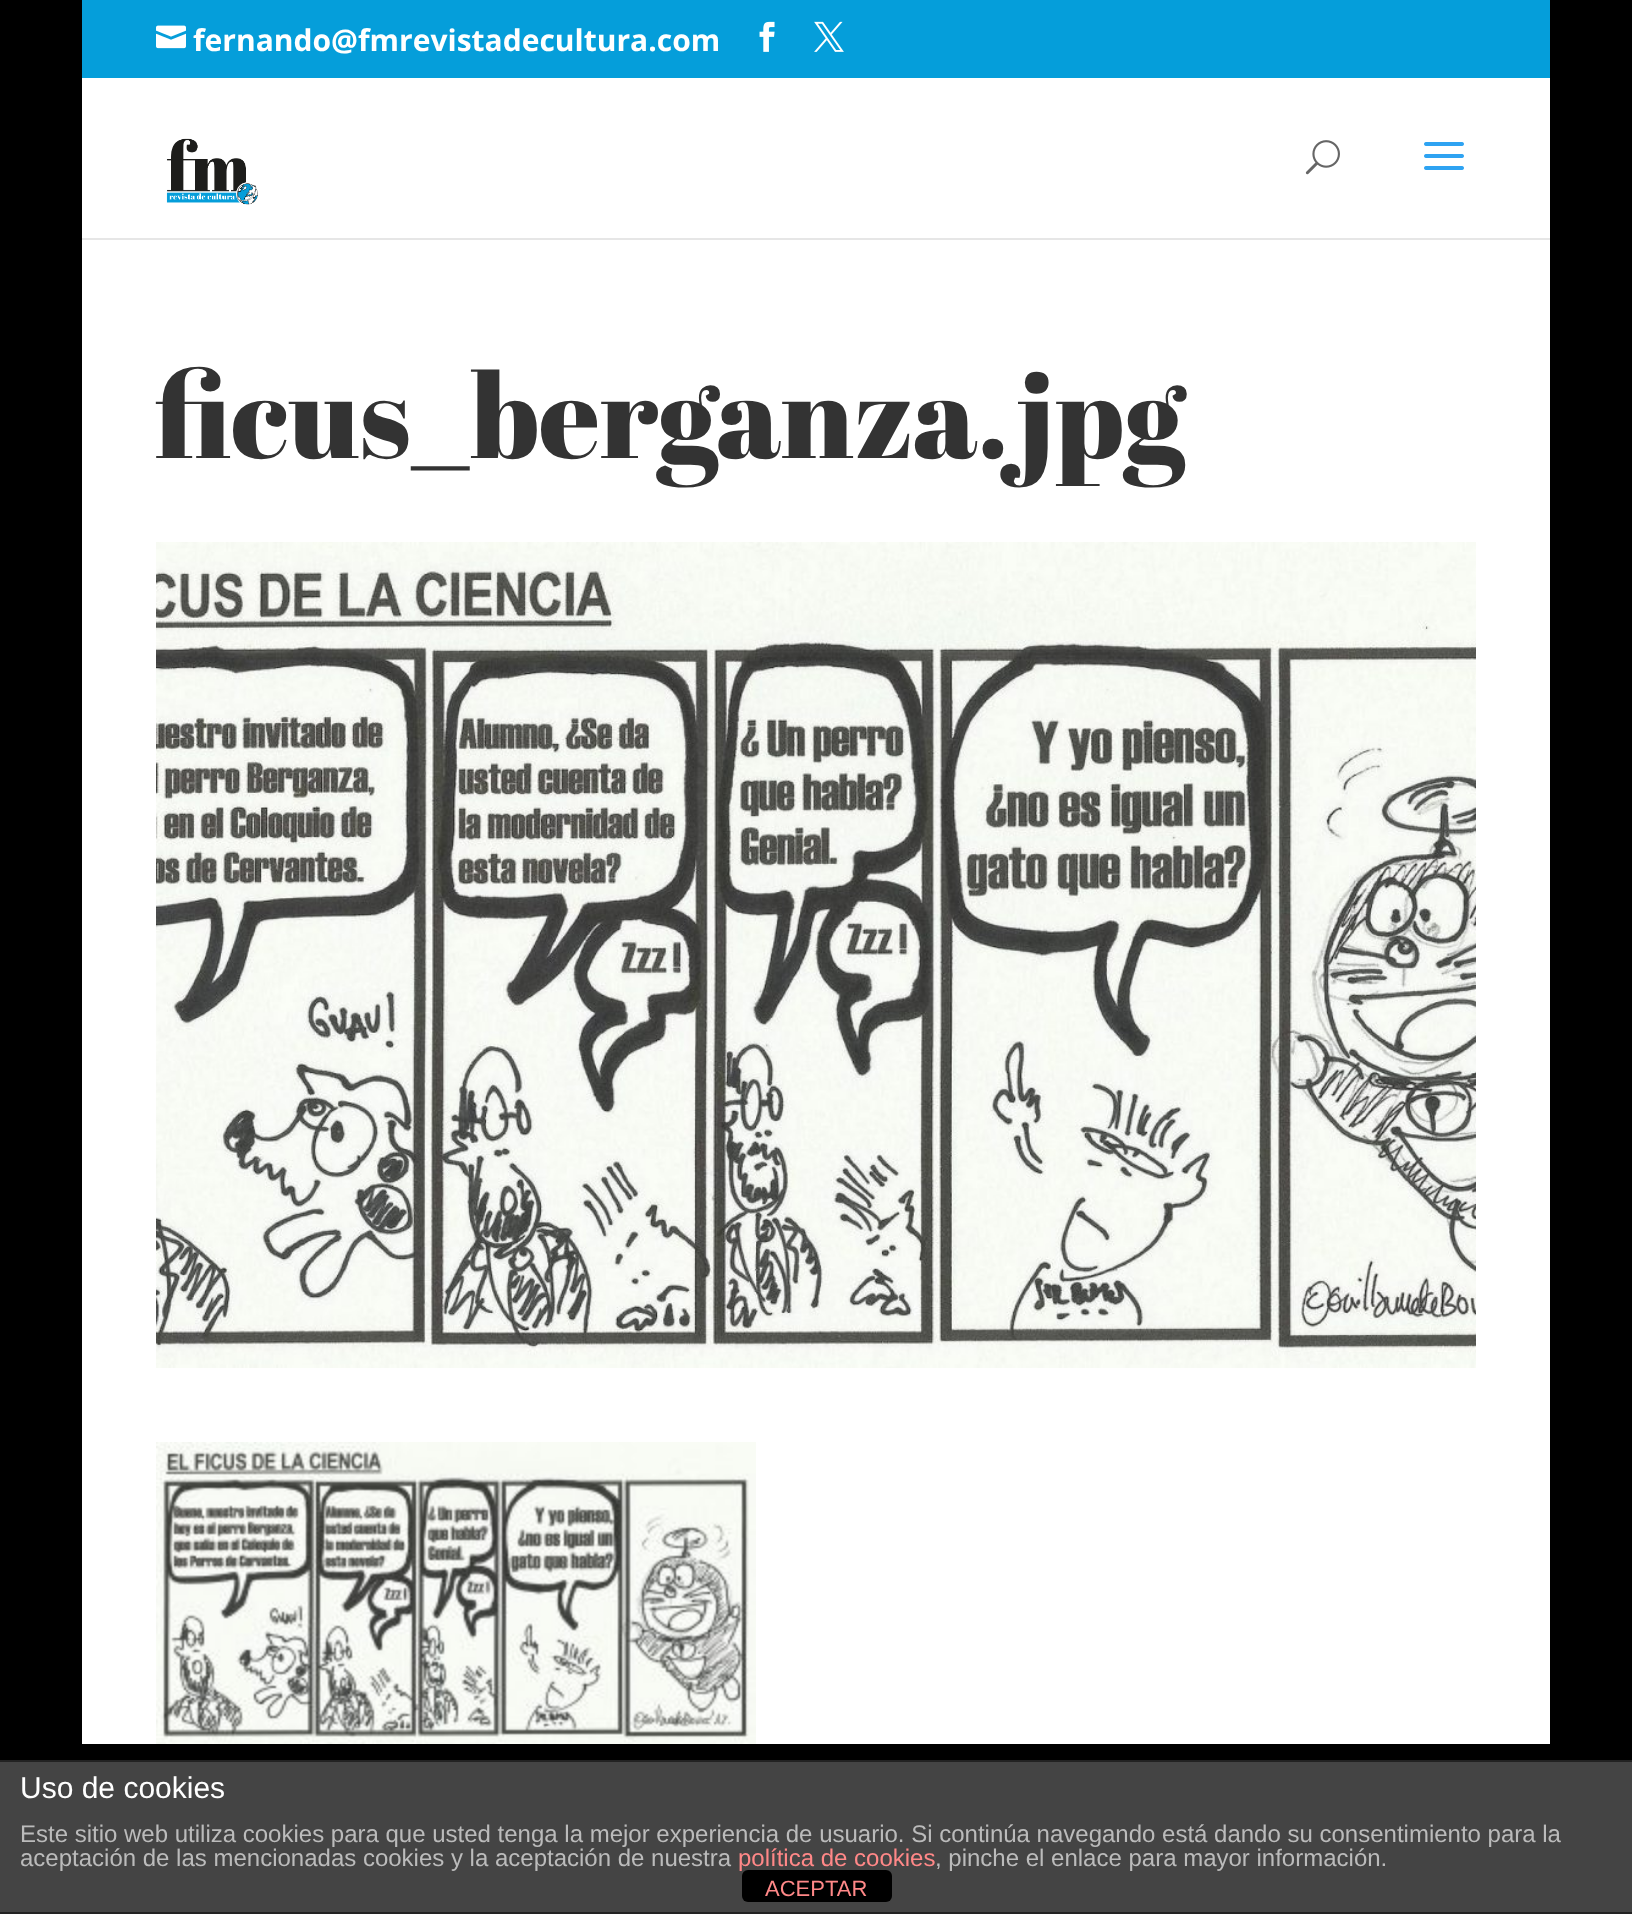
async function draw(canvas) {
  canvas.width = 1632;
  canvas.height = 1914;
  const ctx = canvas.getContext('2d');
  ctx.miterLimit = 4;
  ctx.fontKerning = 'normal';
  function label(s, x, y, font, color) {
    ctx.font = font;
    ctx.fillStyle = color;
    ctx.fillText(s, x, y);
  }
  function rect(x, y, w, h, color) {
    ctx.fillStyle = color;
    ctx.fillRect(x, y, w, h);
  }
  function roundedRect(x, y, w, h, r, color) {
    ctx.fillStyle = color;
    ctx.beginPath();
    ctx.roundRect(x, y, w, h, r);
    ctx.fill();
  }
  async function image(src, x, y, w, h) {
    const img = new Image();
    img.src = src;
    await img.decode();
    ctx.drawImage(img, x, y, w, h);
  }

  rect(0, 0, 1632, 1914, '#000');
  rect(82, 0, 1468, 78, '#059eda');
  await image('assets/img1.png', 156, 25, 30, 24);
  label('fernando@fmrevistadecultura.com', 193, 51, 'bold 30px Open Sans', '#fff');
  await image('assets/img2.png', 759, 21, 16, 31);
  await image('assets/img3.png', 814, 21, 30, 31);
  rect(82, 238, 1468, 2, '#e6e6e6');
  rect(82, 78, 1468, 160, '#fff');
  await image('assets/img4.png', 166, 138, 92, 67);
  await image('assets/img5.png', 1305, 140, 35, 35);
  await image('assets/img6.png', 1424, 142, 40, 28);
  rect(82, 240, 1468, 1504, '#fff');
  label('ficus_berganza.jpg', 155, 458, '118px Abril Fatface', '#333');
  await image('assets/img7.png', 156, 542, 1320, 826);
  await image('assets/img8.png', 156, 1442, 600, 302);
  rect(0, 1762, 1632, 150, '#444');
  rect(0, 1760, 1632, 2, '#222');
  rect(0, 1912, 1632, 2, '#222');
  label('Uso de cookies', 20, 1798, '30px Liberation Sans', '#fff');
  label('Este sitio web utiliza cookies para que usted tenga la mejor experiencia de usuario. Si continúa navegando está dando su consentimiento para la', 20, 1842, '24px Liberation Sans', '#bbb');
  label('aceptación de las mencionadas cookies y la aceptación de nuestra', 20, 1866, '24px Liberation Sans', '#bbb');
  roundedRect(742, 1870, 150, 32, 6, '#000');
  label('política de cookies', 738, 1866, '24px Liberation Sans', '#f88');
  label(', pinche el enlace para mayor información.', 935, 1866, '24px Liberation Sans', '#bbb');
  label('ACEPTAR', 765, 1896, '22px Liberation Sans', '#f88');
}

draw(document.querySelector('canvas'));
